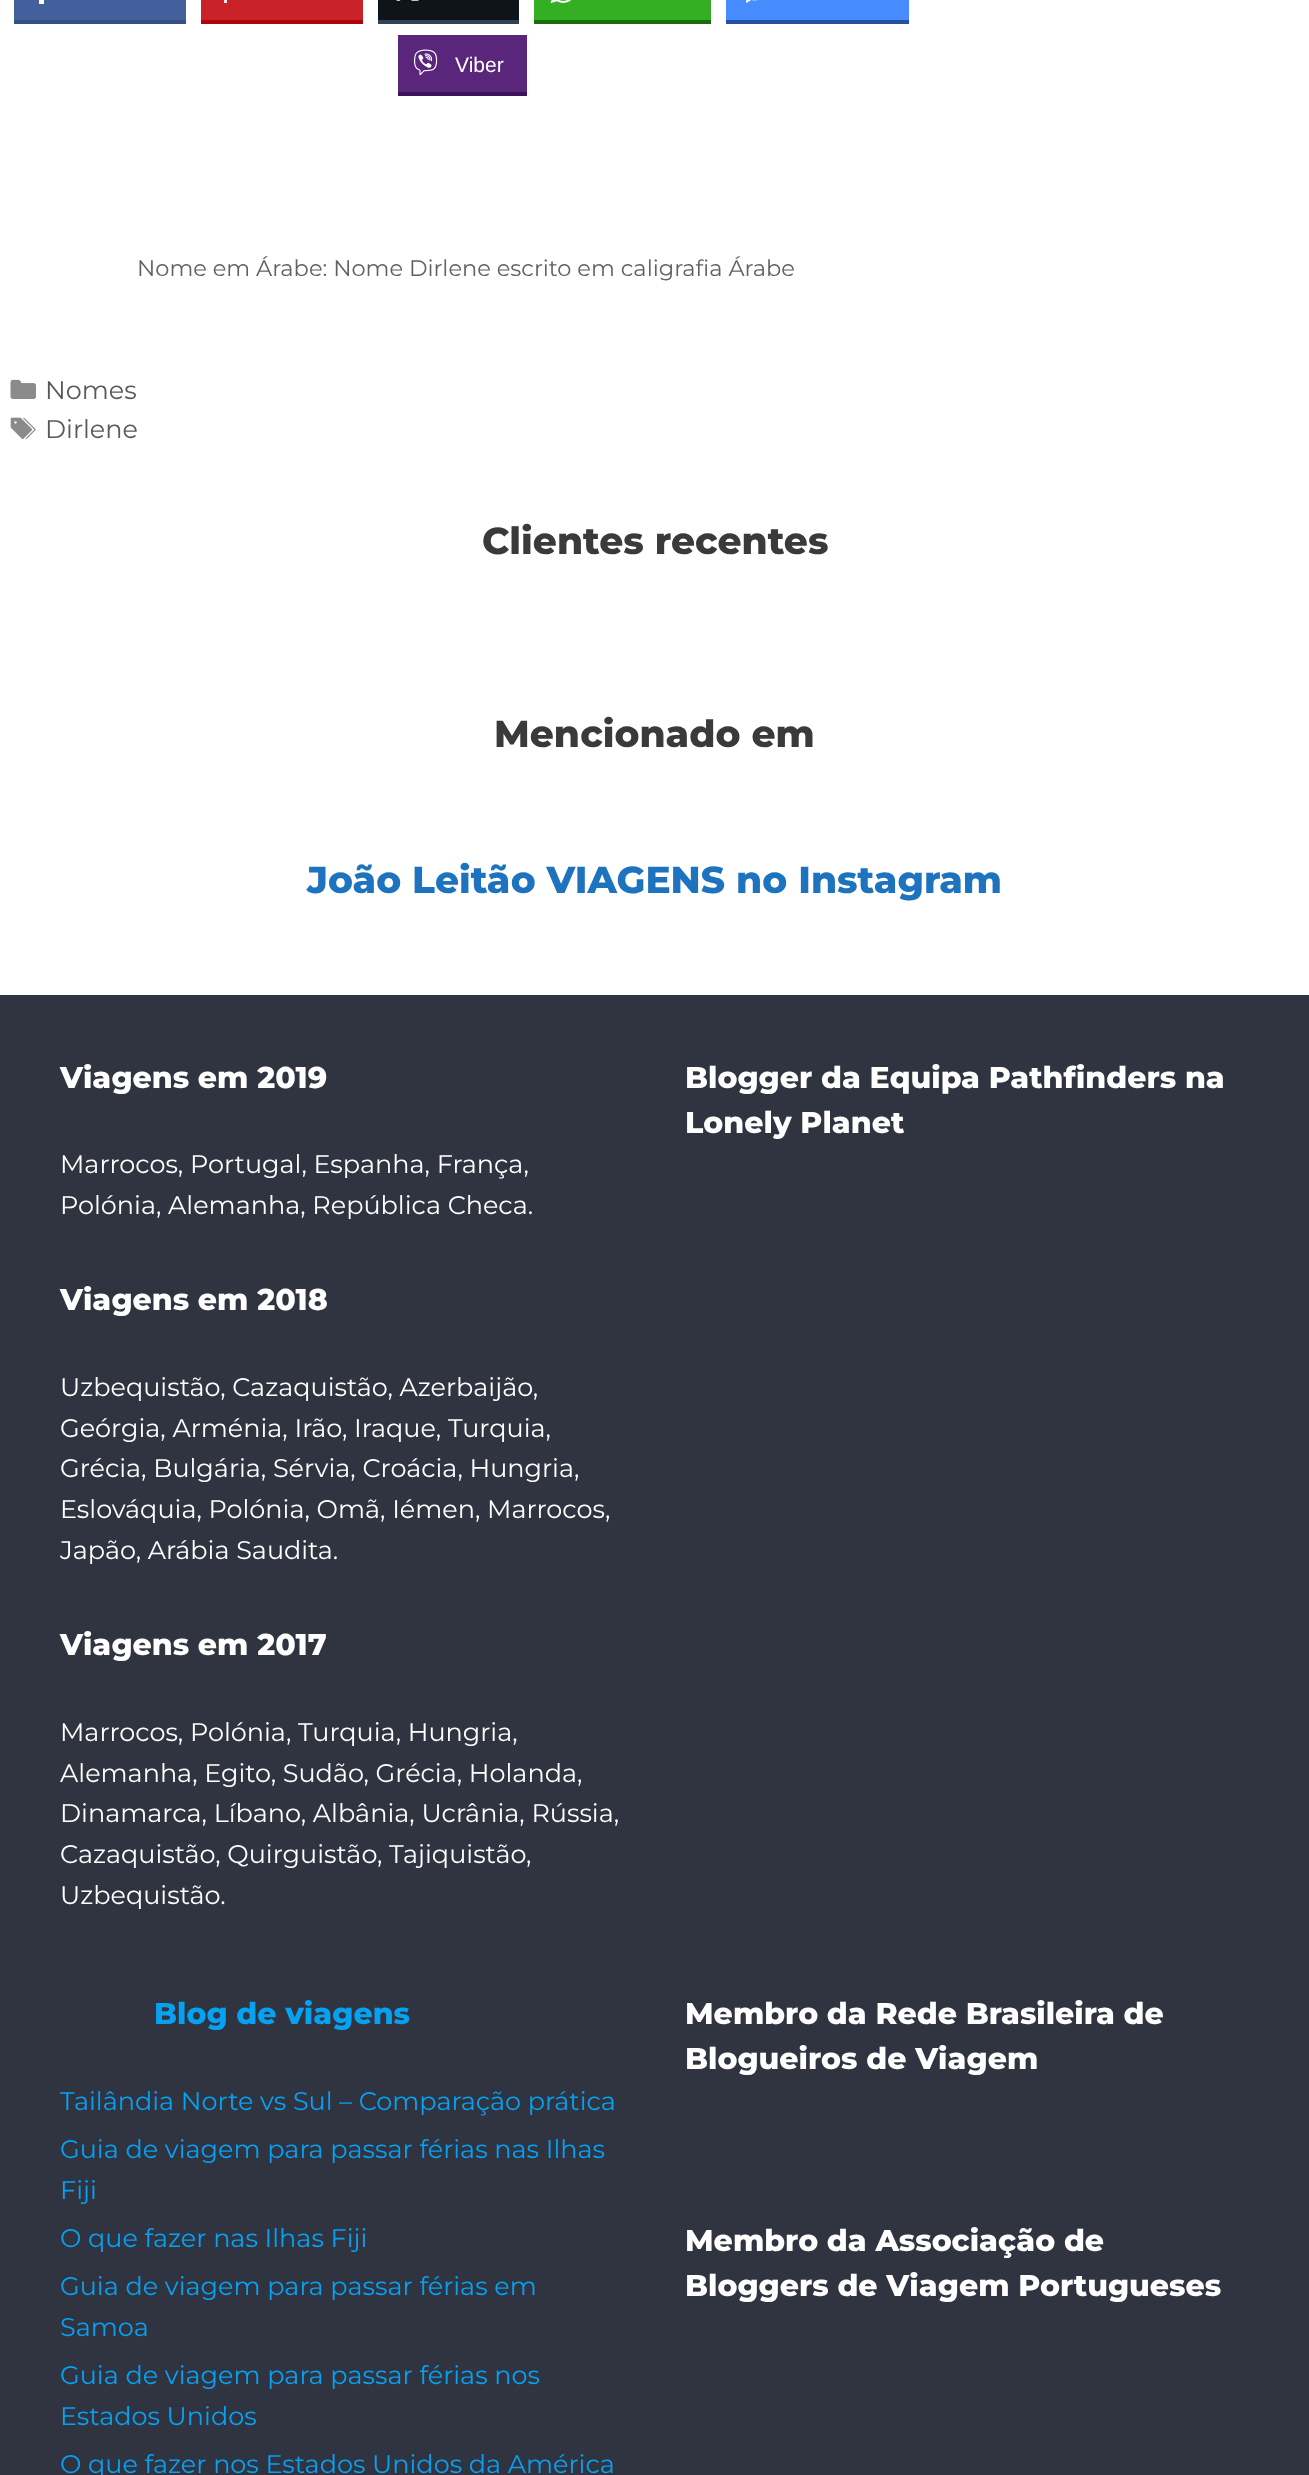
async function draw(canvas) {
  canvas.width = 1309;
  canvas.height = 2475;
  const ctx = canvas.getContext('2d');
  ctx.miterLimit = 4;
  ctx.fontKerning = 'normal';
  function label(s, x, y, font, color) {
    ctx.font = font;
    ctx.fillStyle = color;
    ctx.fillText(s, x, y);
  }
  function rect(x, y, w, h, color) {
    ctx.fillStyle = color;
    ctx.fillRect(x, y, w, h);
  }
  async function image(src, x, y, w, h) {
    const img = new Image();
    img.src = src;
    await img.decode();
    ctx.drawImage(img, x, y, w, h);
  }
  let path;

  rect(0, 0, 1309, 2475, '#fff');
  rect(14, 20, 172, 4, '#354e83');
  rect(14, 0, 172, 20, '#43609c');
  rect(39, 0, 5, 4, '#fff');
  rect(201, 20, 162, 4, '#af040a');
  rect(201, 0, 162, 20, '#c92228');
  rect(224, 0, 3, 3, '#fae9ea');
  rect(378, 20, 141, 4, '#304356');
  rect(378, 0, 141, 20, '#0f1419');
  await image('assets/img1.png', 396, 0, 23, 1);
  rect(534, 20, 177, 4, '#176e0b');
  rect(534, 0, 177, 20, '#34af23');
  await image('assets/img2.png', 550, 0, 21, 4);
  rect(726, 20, 183, 4, '#26519e');
  rect(726, 0, 183, 20, '#468bff');
  await image('assets/img3.png', 746, 0, 12, 3);
  ctx.fillStyle = '#3e115d';
  path = new Path2D('M398 92V96H527V39H526V92Z');
  ctx.fill(path);
  rect(398, 35, 129, 57, '#59267c');
  await image('assets/img4.png', 414, 49, 24, 27);
  label('Viber', 455, 72, '21px Liberation Sans', '#fff');
  label('Nome em Árabe: Nome Dirlene escrito em caligrafia Árabe', 137, 276, '22.5px Montserrat', '#616161');
  await image('assets/img5.png', 10, 379, 26, 20);
  label('Nomes', 45, 399, '25.5px Montserrat', '#595959');
  await image('assets/img6.png', 10, 417, 26, 23);
  label('Dirlene', 45, 438, '25.5px Montserrat', '#595959');
  label('Clientes recentes', 482, 554, '800 37.5px Montserrat', '#3a3a3a');
  label('Mencionado em', 494, 747, '800 37.5px Montserrat', '#3a3a3a');
  label('João Leitão VIAGENS no Instagram', 307, 893, '800 37.5px Montserrat', '#1e73be');
  rect(0, 995, 1309, 1480, '#303440');
  label('Viagens em 2019', 60, 1088, '800 30px Montserrat', '#fff');
  label('Marrocos, Portugal, Espanha, França,', 60, 1173, '25.5px Montserrat', '#fff');
  label('Polónia, Alemanha, República Checa.', 60, 1214, '25.5px Montserrat', '#fff');
  label('Viagens em 2018', 60, 1310, '800 30px Montserrat', '#fff');
  label('Uzbequistão, Cazaquistão, Azerbaijão,', 60, 1396, '25.5px Montserrat', '#fff');
  label('Geórgia, Arménia, Irão, Iraque, Turquia,', 60, 1437, '25.5px Montserrat', '#fff');
  label('Grécia, Bulgária, Sérvia, Croácia, Hungria,', 60, 1477, '25.5px Montserrat', '#fff');
  label('Eslováquia, Polónia, Omã, Iémen, Marrocos,', 60, 1518, '25.5px Montserrat', '#fff');
  label('Japão, Arábia Saudita.', 60, 1559, '25.5px Montserrat', '#fff');
  label('Viagens em 2017', 60, 1655, '800 30px Montserrat', '#fff');
  label('Marrocos, Polónia, Turquia, Hungria,', 60, 1741, '25.5px Montserrat', '#fff');
  label('Alemanha, Egito, Sudão, Grécia, Holanda,', 60, 1782, '25.5px Montserrat', '#fff');
  label('Dinamarca, Líbano, Albânia, Ucrânia, Rússia,', 60, 1822, '25.5px Montserrat', '#fff');
  label('Cazaquistão, Quirguistão, Tajiquistão,', 60, 1863, '25.5px Montserrat', '#fff');
  label('Uzbequistão.', 60, 1904, '25.5px Montserrat', '#fff');
  label('Blogger da Equipa Pathfinders na', 685, 1088, '800 30px Montserrat', '#fff');
  label('Lonely Planet', 685, 1133, '800 30px Montserrat', '#fff');
  label('Blog de viagens', 154, 2024, '800 30px Montserrat', '#07a1f2');
  label('Tailândia Norte vs Sul – Comparação prática', 60, 2110, '25.5px Montserrat', '#07a1f2');
  label('Guia de viagem para passar férias nas Ilhas', 60, 2158, '25.5px Montserrat', '#07a1f2');
  label('Fiji', 60, 2199, '25.5px Montserrat', '#07a1f2');
  label('O que fazer nas Ilhas Fiji', 60, 2247, '25.5px Montserrat', '#07a1f2');
  label('Guia de viagem para passar férias em', 60, 2295, '25.5px Montserrat', '#07a1f2');
  label('Samoa', 60, 2336, '25.5px Montserrat', '#07a1f2');
  label('Guia de viagem para passar férias nos', 60, 2384, '25.5px Montserrat', '#07a1f2');
  label('Estados Unidos', 60, 2425, '25.5px Montserrat', '#07a1f2');
  label('O que fazer nos Estados Unidos da América', 60, 2473, '25.5px Montserrat', '#07a1f2');
  label('Membro da Rede Brasileira de', 685, 2024, '800 30px Montserrat', '#fff');
  label('Blogueiros de Viagem', 685, 2069, '800 30px Montserrat', '#fff');
  label('Membro da Associação de', 685, 2251, '800 30px Montserrat', '#fff');
  label('Bloggers de Viagem Portugueses', 685, 2296, '800 30px Montserrat', '#fff');
}

draw(document.querySelector('canvas'));
